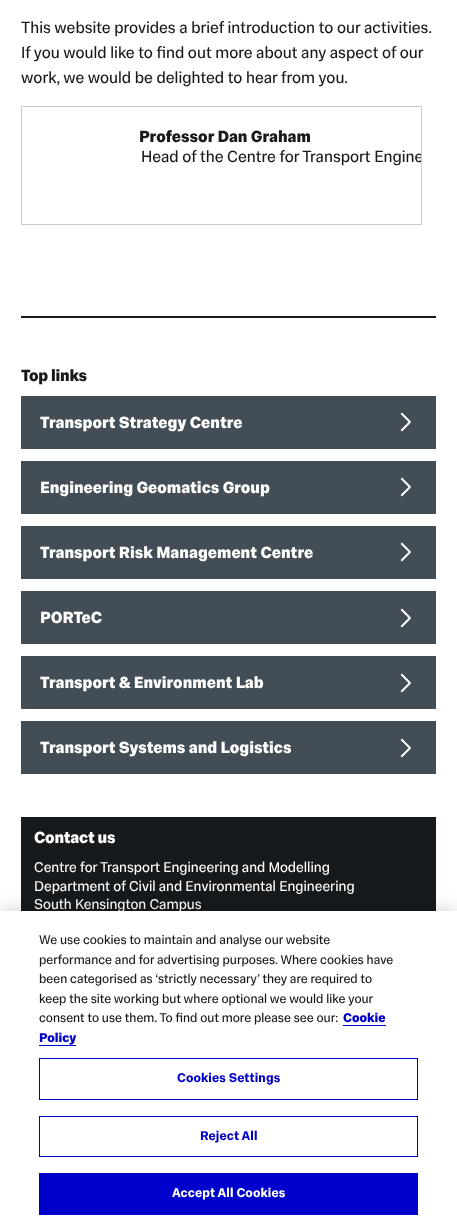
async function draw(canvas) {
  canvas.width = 457;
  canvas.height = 1231;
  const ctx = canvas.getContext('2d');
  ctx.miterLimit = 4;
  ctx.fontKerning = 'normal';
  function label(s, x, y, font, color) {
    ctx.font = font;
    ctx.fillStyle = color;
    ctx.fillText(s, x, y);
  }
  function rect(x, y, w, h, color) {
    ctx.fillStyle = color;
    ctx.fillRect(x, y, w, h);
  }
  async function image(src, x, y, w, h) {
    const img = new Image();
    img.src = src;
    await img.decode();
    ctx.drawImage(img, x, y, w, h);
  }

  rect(0, 0, 457, 1231, '#fff');
  label('This website provides a brief introduction to our activities.', 21, 33, '16.5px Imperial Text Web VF', '#161a1d');
  label('If you would like to find out more about any aspect of our', 21, 58, '16.5px Imperial Text Web VF', '#161a1d');
  label('work, we would be delighted to hear from you.', 21, 83, '16.5px Imperial Text Web VF', '#161a1d');
  ctx.strokeStyle = '#c6ccd3';
  ctx.strokeRect(21.5, 106.5, 400, 118);
  label('Professor Dan Graham', 139, 142, 'bold 16.5px Imperial Text Web VF', '#161a1d');
  ctx.save();
  ctx.beginPath();
  ctx.rect(22, 107, 399, 117);
  ctx.clip();
  label('Head of the Centre for Transport Engine', 141, 162, '16.5px Imperial Text Web VF', '#161a1d');
  ctx.restore();
  rect(21, 316, 415, 2, '#161a1d');
  ctx.letterSpacing = '-0.25px';
  label('Top links', 21, 381, 'bold 16.5px Imperial Text Web VF', '#161a1d');
  rect(21, 396, 415, 53, '#434d56');
  ctx.letterSpacing = '0px';
  label('Transport Strategy Centre', 40, 428, 'bold 16.5px Imperial Text Web VF', '#fff');
  await image('assets/img1.png', 400, 412, 11, 20);
  rect(21, 461, 415, 53, '#434d56');
  label('Engineering Geomatics Group', 40, 493, 'bold 16.5px Imperial Text Web VF', '#fff');
  await image('assets/img1.png', 400, 477, 11, 20);
  rect(21, 526, 415, 53, '#434d56');
  label('Transport Risk Management Centre', 40, 558, 'bold 16.5px Imperial Text Web VF', '#fff');
  await image('assets/img1.png', 400, 542, 11, 20);
  rect(21, 591, 415, 53, '#434d56');
  label('PORTeC', 40, 623, 'bold 16.5px Imperial Text Web VF', '#fff');
  await image('assets/img1.png', 400, 608, 11, 20);
  rect(21, 656, 415, 53, '#434d56');
  label('Transport & Environment Lab', 40, 688, 'bold 16.5px Imperial Text Web VF', '#fff');
  await image('assets/img1.png', 400, 673, 11, 20);
  rect(21, 721, 415, 53, '#434d56');
  label('Transport Systems and Logistics', 40, 753, 'bold 16.5px Imperial Text Web VF', '#fff');
  await image('assets/img1.png', 400, 738, 11, 20);
  rect(21, 817, 415, 94, '#161a1d');
  ctx.letterSpacing = '-0.25px';
  label('Contact us', 34, 843, 'bold 16.5px Imperial Text Web VF', '#fff');
  ctx.letterSpacing = '0px';
  label('Centre for Transport Engineering and Modelling', 34, 872, '14.5px Imperial Text Web VF', '#fff');
  label('Department of Civil and Environmental Engineering', 34, 891, '14.5px Imperial Text Web VF', '#fff');
  label('South Kensington Campus', 34, 909, '14.5px Imperial Text Web VF', '#fff');
  ctx.fillStyle = '#00000033';
  ctx.filter = 'blur(9px)';
  ctx.beginPath();
  ctx.rect(0, 911, 457, 320);
  ctx.fill();
  ctx.filter = 'none';
  rect(0, 911, 457, 320, '#fff');
  label('We use cookies to maintain and analyse our website', 39, 944, '13px Imperial Text Web VF', '#161515');
  label('performance and for advertising purposes. Where cookies have', 39, 964, '13px Imperial Text Web VF', '#161515');
  label('been categorised as ‘strictly necessary’ they are required to', 39, 983, '13px Imperial Text Web VF', '#161515');
  label('keep the site working but where optional we would like your', 39, 1003, '13px Imperial Text Web VF', '#161515');
  label('consent to use them. To find out more please see our:', 39, 1022, '13px Imperial Text Web VF', '#161515');
  label('Cookie', 343, 1022, 'bold 13px Imperial Text Web VF', '#0000cd');
  rect(343, 1025, 43, 1, '#0000cd');
  label('Policy', 39, 1042, 'bold 13px Imperial Text Web VF', '#0000cd');
  rect(39, 1045, 37, 1, '#0000cd');
  ctx.strokeStyle = '#0000cd';
  ctx.strokeRect(39.5, 1058.5, 378, 41);
  ctx.letterSpacing = '0.1px';
  label('Cookies Settings', 177, 1082, '600 13px Imperial Text Web VF', '#0000cd');
  ctx.strokeRect(39.5, 1116.5, 378, 40);
  label('Reject All', 200, 1140, '600 13px Imperial Text Web VF', '#0000cd');
  rect(39, 1173, 379, 42, '#0000cd');
  label('Accept All Cookies', 172, 1197, '600 13px Imperial Text Web VF', '#fff');
}

draw(document.querySelector('canvas'));
